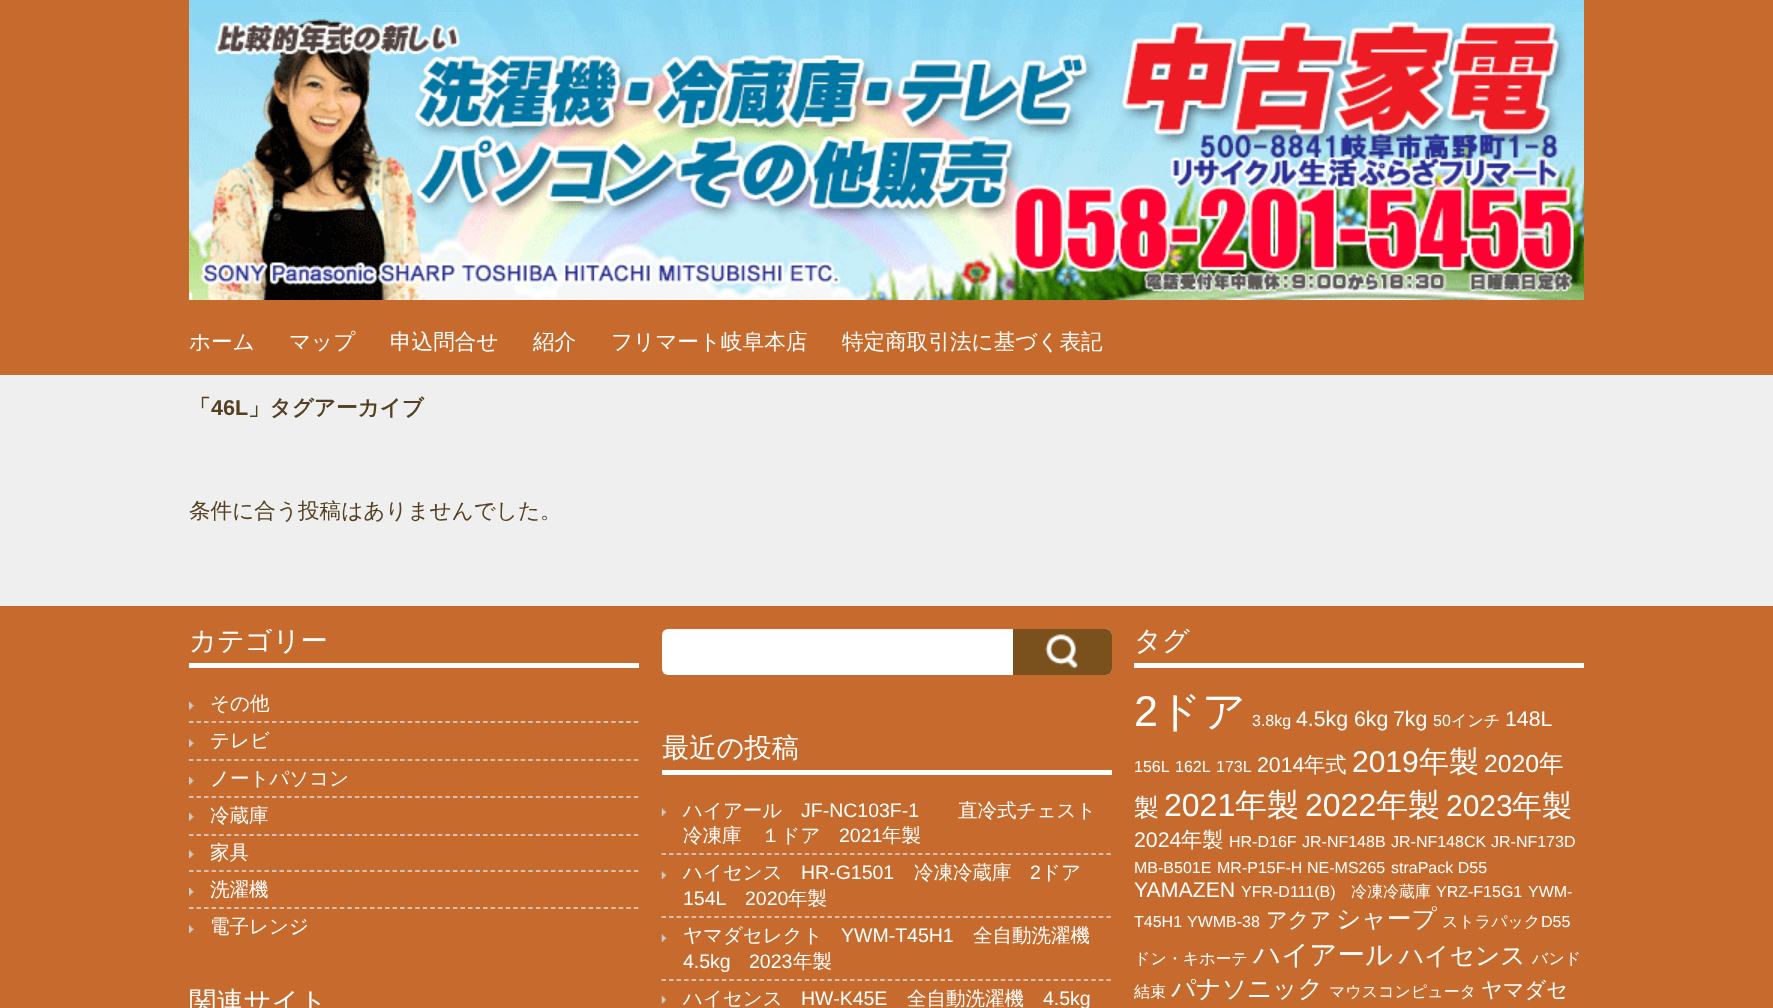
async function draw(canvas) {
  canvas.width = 1773;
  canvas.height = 1008;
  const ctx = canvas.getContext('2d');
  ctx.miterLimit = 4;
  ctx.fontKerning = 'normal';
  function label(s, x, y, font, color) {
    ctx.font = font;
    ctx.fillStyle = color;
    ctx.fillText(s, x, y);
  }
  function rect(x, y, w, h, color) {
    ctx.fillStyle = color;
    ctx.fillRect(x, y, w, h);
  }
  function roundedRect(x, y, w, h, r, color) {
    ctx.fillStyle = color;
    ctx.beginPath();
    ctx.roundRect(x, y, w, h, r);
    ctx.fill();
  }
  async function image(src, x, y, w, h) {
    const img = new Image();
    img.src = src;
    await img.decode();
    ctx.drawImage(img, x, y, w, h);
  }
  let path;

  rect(0, 0, 1773, 1008, '#efefef');
  rect(0, 0, 1773, 375, '#c66b2d');
  await image('assets/img1.png', 189, 0, 1395, 300);
  label('ホーム', 189, 349, '500 21.6px WenQuanYi Zen Hei', '#fff');
  label('マップ', 289, 349, '500 21.6px WenQuanYi Zen Hei', '#fff');
  label('申込問合せ', 390, 349, '500 21.6px WenQuanYi Zen Hei', '#fff');
  label('紹介', 533, 349, '500 21.6px WenQuanYi Zen Hei', '#fff');
  label('フリマート岐阜本店', 611, 349, '500 21.6px WenQuanYi Zen Hei', '#fff');
  label('特定商取引法に基づく表記', 842, 349, '500 21.6px WenQuanYi Zen Hei', '#fff');
  label('「', 189, 415, 'bold 21.6px WenQuanYi Zen Hei', '#544021');
  label('46L', 211, 415, 'bold 21.6px Liberation Sans', '#544021');
  label('」タグアーカイブ', 248, 415, 'bold 21.6px WenQuanYi Zen Hei', '#544021');
  label('条件に合う投稿はありませんでした。', 189, 518, '500 21.6px WenQuanYi Zen Hei', '#544021');
  rect(0, 606, 1773, 402, '#c66b2d');
  rect(189, 663, 450, 5, '#fff');
  ctx.save();
  ctx.beginPath();
  ctx.rect(167, 629, 1417, 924);
  ctx.clip();
  label('カテゴリー', 189, 650, '500 27.25px WenQuanYi Zen Hei', '#fff');
  ctx.restore();
  await image('assets/img2.png', 189, 702, 5, 8);
  label('その他', 210, 710, '500 19.5px WenQuanYi Zen Hei', '#fff');
  await image('assets/img3.png', 189, 739, 5, 8);
  path = new Path2D('M189 722H639');
  ctx.strokeStyle = '#ddd';
  ctx.lineWidth = 1.5;
  ctx.setLineDash([4.5, 3.04]);
  ctx.stroke(path);
  label('テレビ', 210, 747, '500 19.5px WenQuanYi Zen Hei', '#fff');
  await image('assets/img2.png', 189, 777, 5, 8);
  path = new Path2D('M189 760H639');
  ctx.stroke(path);
  label('ノートパソコン', 210, 785, '500 19.5px WenQuanYi Zen Hei', '#fff');
  await image('assets/img2.png', 189, 813, 5, 8);
  path = new Path2D('M189 797H639');
  ctx.stroke(path);
  label('冷蔵庫', 210, 822, '500 19.5px WenQuanYi Zen Hei', '#fff');
  await image('assets/img3.png', 189, 850, 5, 8);
  path = new Path2D('M189 835H639');
  ctx.stroke(path);
  label('家具', 210, 859, '500 19.5px WenQuanYi Zen Hei', '#fff');
  await image('assets/img2.png', 189, 888, 5, 8);
  path = new Path2D('M189 871H639');
  ctx.stroke(path);
  label('洗濯機', 210, 896, '500 19.5px WenQuanYi Zen Hei', '#fff');
  await image('assets/img3.png', 189, 925, 5, 8);
  path = new Path2D('M189 908H639');
  ctx.stroke(path);
  label('電子レンジ', 210, 933, '500 19.5px WenQuanYi Zen Hei', '#fff');
  roundedRect(662, 629, 450, 46, 6, '#fff');
  ctx.fillStyle = '#7a511c';
  ctx.beginPath();
  ctx.roundRect(1013, 629, 99, 46, [0, 6, 6, 0]);
  ctx.fill();
  await image('assets/img4.png', 1045, 634, 33, 35);
  rect(1134, 663, 450, 5, '#fff');
  label('タグ', 1134, 650, '500 27.25px WenQuanYi Zen Hei', '#fff');
  label('2', 1134, 726, '43px Liberation Sans', '#fff');
  label('ドア', 1158, 726, '500 43px WenQuanYi Zen Hei', '#fff');
  label('3.8kg', 1252, 726, '16px Liberation Sans', '#fff');
  label('4.5kg', 1296, 726, '21.25px Liberation Sans', '#fff');
  label('6kg', 1354, 726, '21.25px Liberation Sans', '#fff');
  label('7kg', 1393, 726, '21.25px Liberation Sans', '#fff');
  label('50', 1433, 726, '16px Liberation Sans', '#fff');
  label('インチ', 1451, 726, '500 16px WenQuanYi Zen Hei', '#fff');
  label('148L', 1505, 726, '21.25px Liberation Sans', '#fff');
  label('156L', 1134, 772, '16px Liberation Sans', '#fff');
  label('162L', 1175, 772, '16px Liberation Sans', '#fff');
  label('173L', 1216, 772, '16px Liberation Sans', '#fff');
  label('2014', 1257, 772, '21.25px Liberation Sans', '#fff');
  label('年式', 1304, 772, '500 21.25px WenQuanYi Zen Hei', '#fff');
  label('2019', 1352, 772, '30px Liberation Sans', '#fff');
  label('年製', 1419, 772, '500 30px WenQuanYi Zen Hei', '#fff');
  label('2020', 1484, 772, '24.75px Liberation Sans', '#fff');
  label('年', 1539, 772, '500 24.75px WenQuanYi Zen Hei', '#fff');
  label('製', 1134, 816, '500 24.75px WenQuanYi Zen Hei', '#fff');
  label('2021', 1164, 816, '32px Liberation Sans', '#fff');
  label('年製', 1235, 816, '500 32px WenQuanYi Zen Hei', '#fff');
  label('2022', 1305, 816, '32px Liberation Sans', '#fff');
  label('年製', 1376, 816, '500 32px WenQuanYi Zen Hei', '#fff');
  label('2023', 1446, 816, '30px Liberation Sans', '#fff');
  label('年製', 1512, 816, '500 30px WenQuanYi Zen Hei', '#fff');
  label('2024', 1134, 847, '21.25px Liberation Sans', '#fff');
  label('年製', 1181, 847, '500 21.25px WenQuanYi Zen Hei', '#fff');
  label('HR-D16F', 1229, 847, '16px Liberation Sans', '#fff');
  label('JR-NF148B', 1302, 847, '16px Liberation Sans', '#fff');
  label('JR-NF148CK', 1391, 847, '16px Liberation Sans', '#fff');
  label('JR-NF173D', 1491, 847, '16px Liberation Sans', '#fff');
  label('MB-B501E', 1134, 873, '16px Liberation Sans', '#fff');
  label('MR-P15F-H', 1217, 873, '16px Liberation Sans', '#fff');
  label('NE-MS265', 1307, 873, '16px Liberation Sans', '#fff');
  label('straPack D55', 1391, 873, '16px Liberation Sans', '#fff');
  label('YAMAZEN', 1134, 897, '21.25px Liberation Sans', '#fff');
  label('YFR-D111(B)', 1241, 897, '16px Liberation Sans', '#fff');
  label('冷凍冷蔵庫', 1351, 897, '500 16px WenQuanYi Zen Hei', '#fff');
  label('YRZ-F15G1', 1436, 897, '16px Liberation Sans', '#fff');
  label('YWM-', 1528, 897, '16px Liberation Sans', '#fff');
  label('T45H1', 1134, 927, '16px Liberation Sans', '#fff');
  label('YWMB-38', 1187, 927, '16px Liberation Sans', '#fff');
  label('アクア', 1266, 927, '500 21.25px WenQuanYi Zen Hei', '#fff');
  label('シャープ', 1336, 927, '500 24.75px WenQuanYi Zen Hei', '#fff');
  label('ストラパック', 1442, 927, '500 16px WenQuanYi Zen Hei', '#fff');
  label('D55', 1541, 927, '16px Liberation Sans', '#fff');
  label('ドン・キホーテ', 1134, 964, '500 16px WenQuanYi Zen Hei', '#fff');
  label('ハイアール', 1253, 964, '500 27.5px WenQuanYi Zen Hei', '#fff');
  label('ハイセンス', 1399, 964, '500 24.75px WenQuanYi Zen Hei', '#fff');
  label('バンド', 1532, 964, '500 16px WenQuanYi Zen Hei', '#fff');
  label('結束', 1134, 997, '500 16px WenQuanYi Zen Hei', '#fff');
  label('パナソニック', 1171, 997, '500 24.75px WenQuanYi Zen Hei', '#fff');
  label('マウスコンピュータ', 1329, 997, '500 16px WenQuanYi Zen Hei', '#fff');
  label('ヤマダセ', 1481, 997, '500 21.25px WenQuanYi Zen Hei', '#fff');
  label('関連サイト', 189, 1011, '500 27.25px WenQuanYi Zen Hei', '#fff');
  rect(662, 770, 450, 5, '#fff');
  label('最近の投稿', 662, 757, '500 27.25px WenQuanYi Zen Hei', '#fff');
  await image('assets/img5.png', 661, 808, 5, 8);
  label('ハイアール', 683, 817, '500 19.5px WenQuanYi Zen Hei', '#fff');
  label('JF-NC103F-1', 801, 817, '19.5px Liberation Sans', '#fff');
  label('直冷式チェスト', 958, 817, '500 19.5px WenQuanYi Zen Hei', '#fff');
  label('冷凍庫　１ドア', 683, 842, '500 19.5px WenQuanYi Zen Hei', '#fff');
  label('2021', 839, 842, '19.5px Liberation Sans', '#fff');
  label('年製', 882, 842, '500 19.5px WenQuanYi Zen Hei', '#fff');
  await image('assets/img5.png', 661, 871, 5, 8);
  path = new Path2D('M661.5 854H1111.5');
  ctx.stroke(path);
  label('ハイセンス', 683, 879, '500 19.5px WenQuanYi Zen Hei', '#fff');
  label('HR-G1501', 801, 879, '19.5px Liberation Sans', '#fff');
  label('冷凍冷蔵庫', 914, 879, '500 19.5px WenQuanYi Zen Hei', '#fff');
  label('2', 1030, 879, '19.5px Liberation Sans', '#fff');
  label('ドア', 1041, 879, '500 19.5px WenQuanYi Zen Hei', '#fff');
  label('154L', 683, 905, '19.5px Liberation Sans', '#fff');
  label('2020', 745, 905, '19.5px Liberation Sans', '#fff');
  label('年製', 788, 905, '500 19.5px WenQuanYi Zen Hei', '#fff');
  await image('assets/img5.png', 661, 934, 5, 8);
  path = new Path2D('M661.5 917H1111.5');
  ctx.stroke(path);
  label('ヤマダセレクト', 683, 942, '500 19.5px WenQuanYi Zen Hei', '#fff');
  label('YWM-T45H1', 841, 942, '19.5px Liberation Sans', '#fff');
  label('全自動洗濯機', 973, 942, '500 19.5px WenQuanYi Zen Hei', '#fff');
  label('4.5kg', 683, 968, '19.5px Liberation Sans', '#fff');
  label('2023', 749, 968, '19.5px Liberation Sans', '#fff');
  label('年製', 793, 968, '500 19.5px WenQuanYi Zen Hei', '#fff');
  await image('assets/img6.png', 661, 996, 5, 8);
  path = new Path2D('M661.5 980H1111.5');
  ctx.stroke(path);
  label('ハイセンス', 683, 1005, '500 19.5px WenQuanYi Zen Hei', '#fff');
  label('HW-K45E', 801, 1005, '19.5px Liberation Sans', '#fff');
  label('全自動洗濯機', 907, 1005, '500 19.5px WenQuanYi Zen Hei', '#fff');
  label('4.5kg', 1043, 1005, '19.5px Liberation Sans', '#fff');
}

draw(document.querySelector('canvas'));
